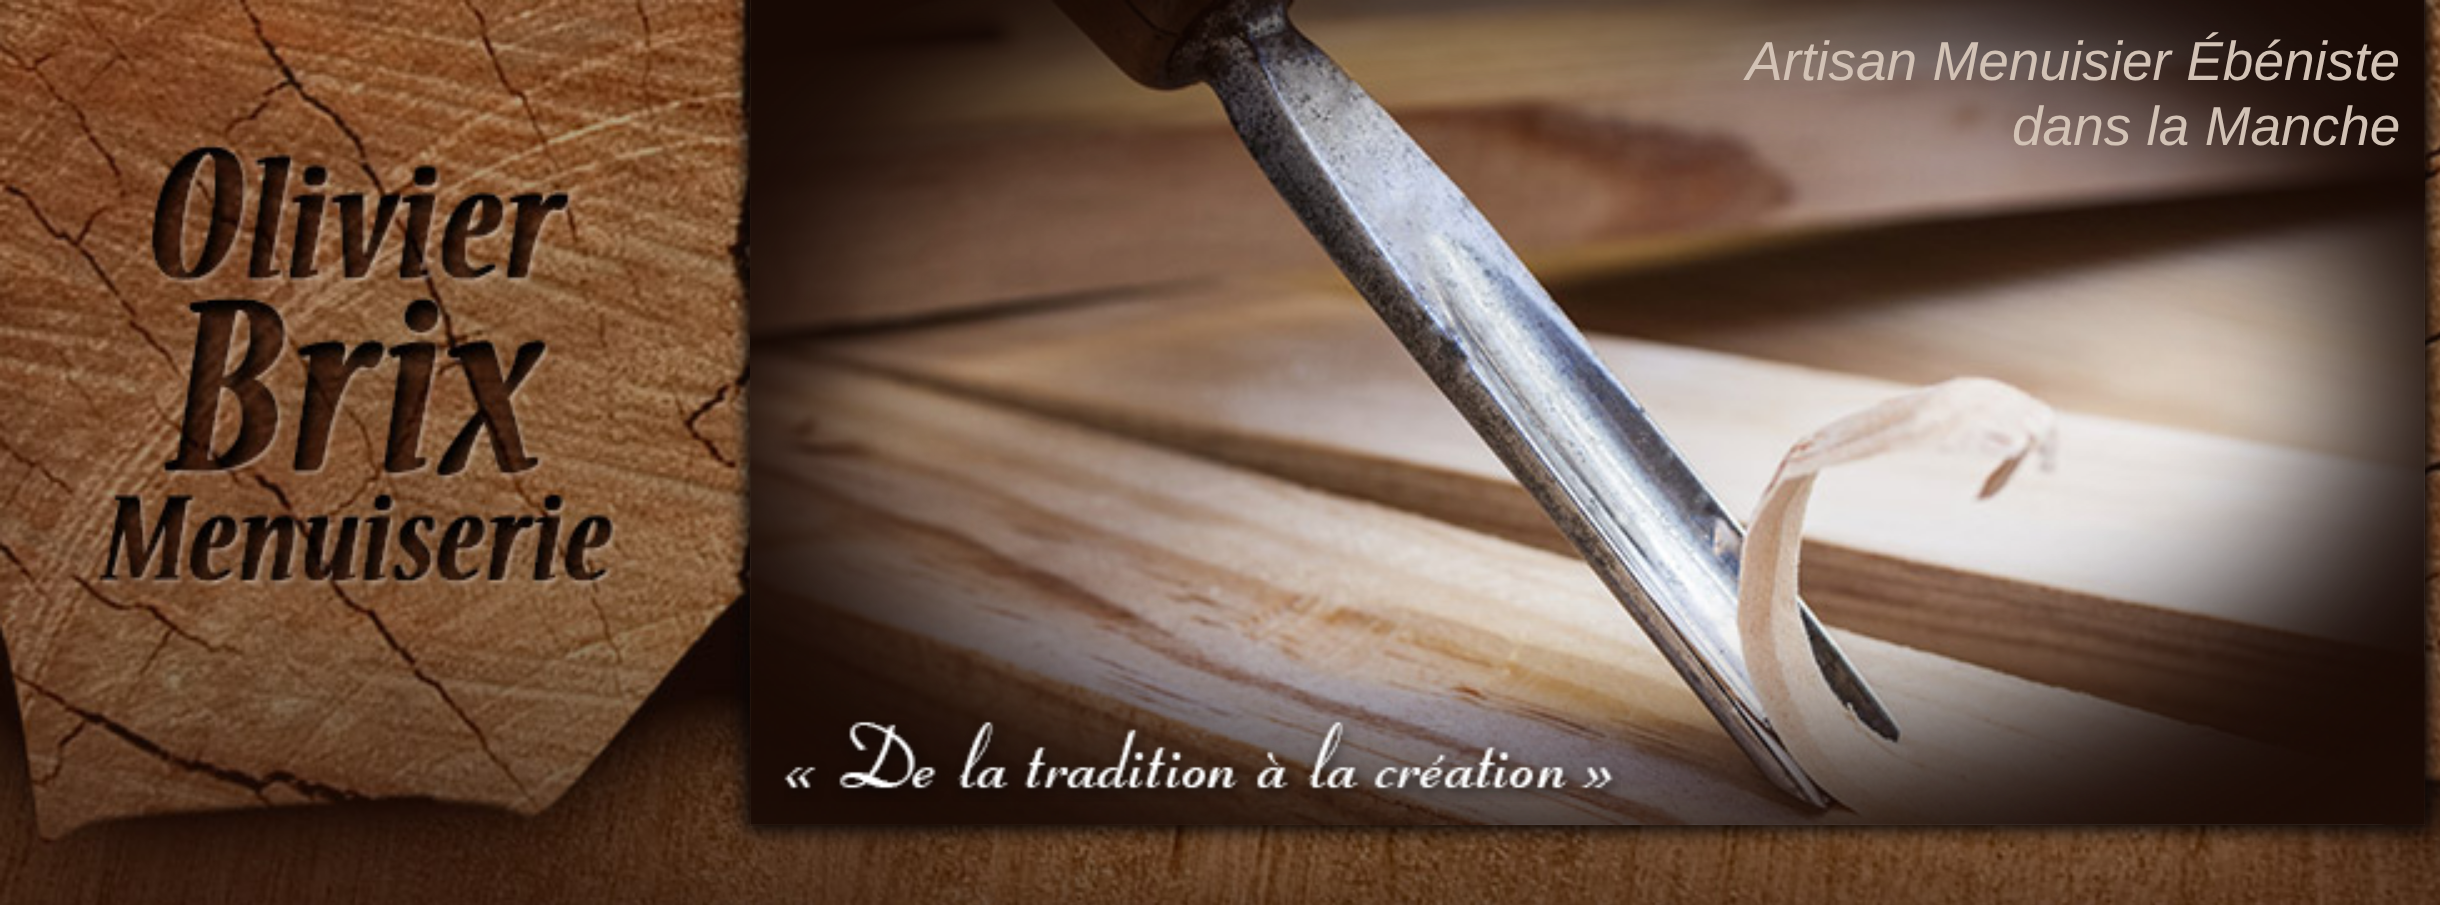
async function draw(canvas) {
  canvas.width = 2440;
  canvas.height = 905;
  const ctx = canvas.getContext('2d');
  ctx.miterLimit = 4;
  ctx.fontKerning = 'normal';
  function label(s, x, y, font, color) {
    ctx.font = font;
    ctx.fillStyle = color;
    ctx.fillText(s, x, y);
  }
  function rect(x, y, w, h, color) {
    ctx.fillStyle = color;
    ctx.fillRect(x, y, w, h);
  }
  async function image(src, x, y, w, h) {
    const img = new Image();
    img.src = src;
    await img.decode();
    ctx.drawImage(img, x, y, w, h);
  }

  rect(0, 0, 2440, 905, '#fff');
  await image('assets/img1.png', 0, 0, 2440, 905);
  await image('assets/img3.png', 750, 0, 1675, 825);
  await image('assets/img2.png', 730, 0, 1710, 845);
  label('Artisan Menuisier Ébéniste', 1746, 80, 'italic 55px Liberation Sans', '#d2c2b5');
  label('dans la Manche', 2012, 145, 'italic 55px Liberation Sans', '#d2c2b5');
  await image('assets/img4.png', 784, 719, 837, 83);
}

draw(document.querySelector('canvas'));
